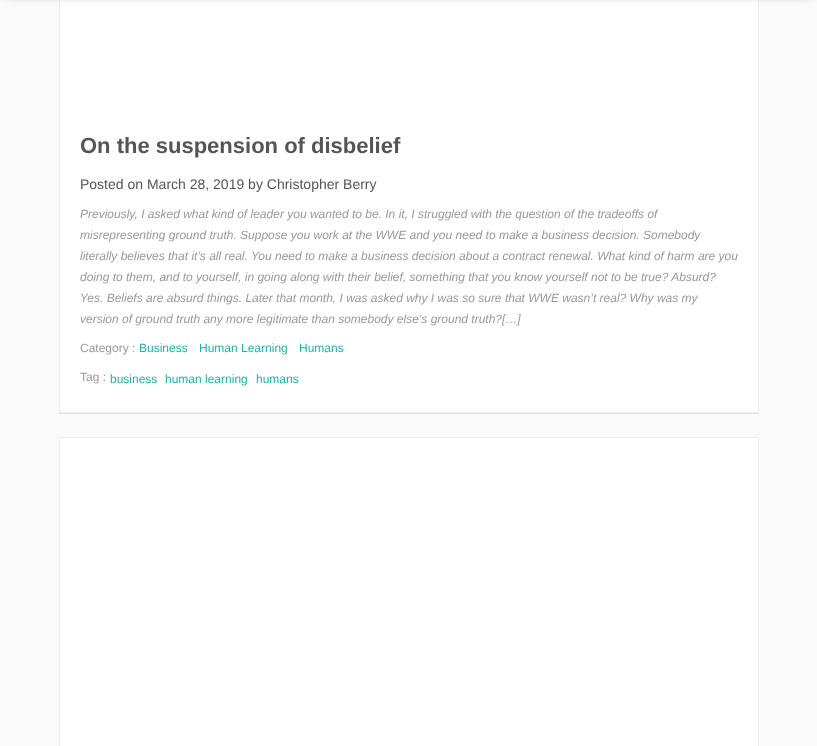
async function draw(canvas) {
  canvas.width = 817;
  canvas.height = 746;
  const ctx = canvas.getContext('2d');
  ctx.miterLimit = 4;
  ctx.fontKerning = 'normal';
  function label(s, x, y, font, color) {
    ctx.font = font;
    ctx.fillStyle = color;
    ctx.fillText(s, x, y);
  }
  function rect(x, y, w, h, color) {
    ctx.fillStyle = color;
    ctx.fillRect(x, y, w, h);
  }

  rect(0, 0, 817, 746, '#fafafa');
  ctx.fillStyle = '#0000001a';
  ctx.filter = 'blur(0.5px)';
  ctx.beginPath();
  ctx.rect(59, -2, 700, 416);
  ctx.fill();
  ctx.filter = 'none';
  ctx.fillStyle = '#fff';
  ctx.beginPath();
  ctx.rect(59.5, -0.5, 699, 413);
  ctx.fill();
  ctx.strokeStyle = '#eee';
  ctx.stroke();
  ctx.fillStyle = '#00000066';
  ctx.filter = 'blur(5px)';
  ctx.beginPath();
  ctx.rect(5, -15, 807, 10);
  ctx.fill();
  ctx.filter = 'none';
  label('On the suspension of disbelief', 80, 153, 'bold 22px Liberation Sans', '#555');
  label('Posted on March 28, 2019 by Christopher Berry', 80, 189, '14px Liberation Sans', '#555');
  label('Previously, I asked what kind of leader you wanted to be. In it, I struggled with the question of the tradeoffs of', 80, 218, 'italic 12px Liberation Sans', '#999');
  label('misrepresenting ground truth. Suppose you work at the WWE and you need to make a business decision. Somebody', 80, 239, 'italic 12px Liberation Sans', '#999');
  label('literally believes that it’s all real. You need to make a business decision about a contract renewal. What kind of harm are you', 80, 260, 'italic 12px Liberation Sans', '#999');
  label('doing to them, and to yourself, in going along with their belief, something that you know yourself not to be true? Absurd?', 80, 281, 'italic 12px Liberation Sans', '#999');
  label('Yes. Beliefs are absurd things. Later that month, I was asked why I was so sure that WWE wasn’t real? Why was my', 80, 302, 'italic 12px Liberation Sans', '#999');
  label('version of ground truth any more legitimate than somebody else’s ground truth?[…]', 80, 323, 'italic 12px Liberation Sans', '#999');
  label('Category :', 80, 352, '12px Liberation Sans', '#999');
  label('Business', 139, 352, '12px Liberation Sans', '#20b2aa');
  label('Human Learning', 199, 352, '12px Liberation Sans', '#20b2aa');
  label('Humans', 299, 352, '12px Liberation Sans', '#20b2aa');
  label('Tag :', 80, 381, '12px Liberation Sans', '#999');
  label('business', 110, 383, '12px Liberation Sans', '#20b2aa');
  label('human learning', 165, 383, '12px Liberation Sans', '#20b2aa');
  label('humans', 256, 383, '12px Liberation Sans', '#20b2aa');
  ctx.fillStyle = '#fff';
  ctx.beginPath();
  ctx.rect(59.5, 437.5, 699, 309);
  ctx.fill();
  ctx.stroke();
}

draw(document.querySelector('canvas'));
